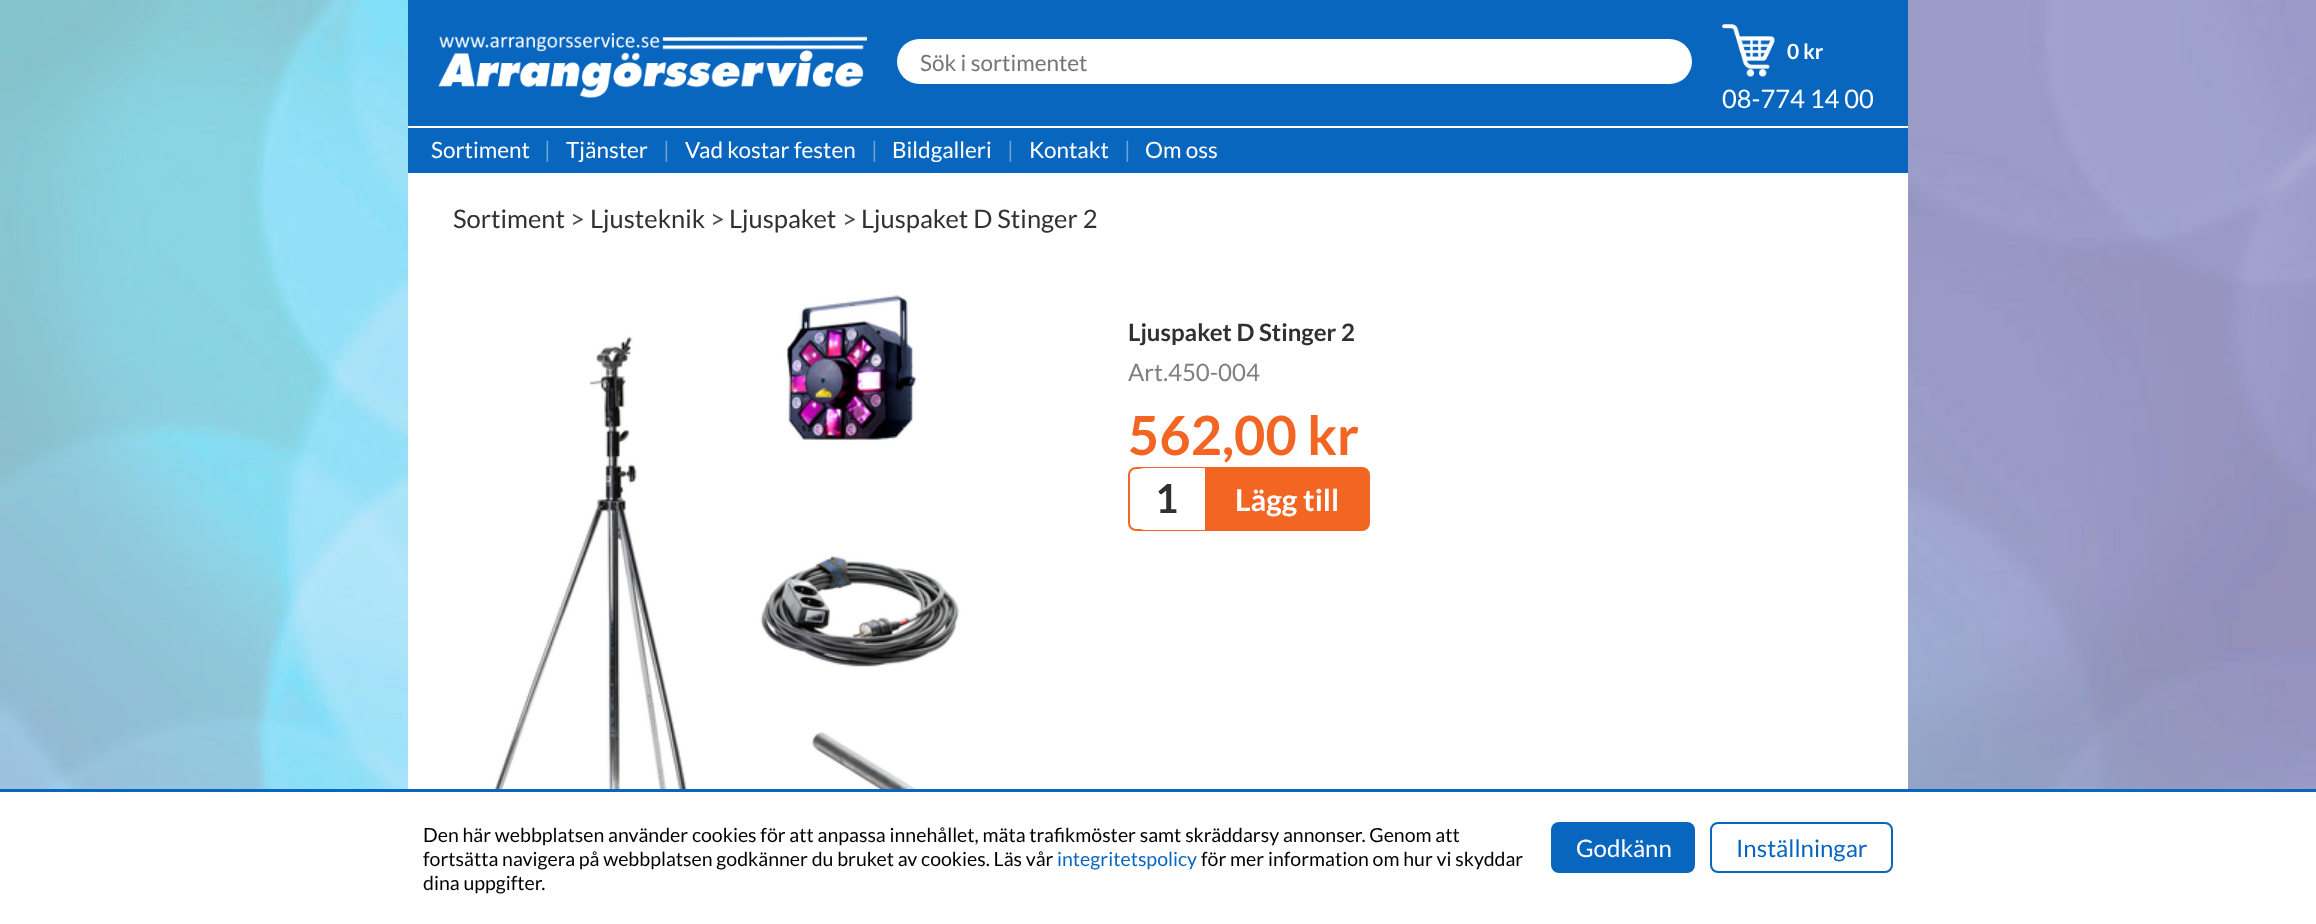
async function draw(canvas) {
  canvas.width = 2316;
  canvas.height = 924;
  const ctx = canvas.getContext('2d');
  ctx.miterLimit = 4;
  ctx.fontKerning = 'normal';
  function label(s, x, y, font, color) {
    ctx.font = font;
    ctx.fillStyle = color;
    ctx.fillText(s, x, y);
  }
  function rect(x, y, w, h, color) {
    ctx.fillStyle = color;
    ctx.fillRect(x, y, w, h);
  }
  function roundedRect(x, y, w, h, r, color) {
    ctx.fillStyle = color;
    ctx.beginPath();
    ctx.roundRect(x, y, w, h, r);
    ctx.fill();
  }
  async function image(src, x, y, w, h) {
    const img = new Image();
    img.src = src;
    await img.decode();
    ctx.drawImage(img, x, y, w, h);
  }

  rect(0, 0, 2316, 924, '#fff');
  await image('assets/img1.png', 0, 0, 2316, 789);
  rect(408, 126, 1500, 663, '#fff');
  rect(408, 0, 1500, 126, '#0966bf');
  await image('assets/img2.png', 438, 33, 429, 65);
  roundedRect(897, 39, 795, 45, 22.5, '#fff');
  label('Sök i sortimentet', 920, 71, '22.5px Lato', '#757575');
  await image('assets/img3.png', 1722, 24, 53, 53);
  label('0 kr', 1787, 59, 'bold 21px Lato', '#fff');
  label('08-774 14 00', 1722, 108, '25.5px Lato', '#fff');
  rect(408, 128, 1500, 45, '#0966bf');
  label('Sortiment', 431, 158, '22.5px Lato', '#fff');
  label('|', 544, 158, '22.5px Lato', '#6fa3d4');
  label('Tjänster', 566, 158, '22.5px Lato', '#fff');
  label('|', 663, 158, '22.5px Lato', '#6fa3d4');
  label('Vad kostar festen', 685, 158, '22.5px Lato', '#fff');
  label('|', 871, 158, '22.5px Lato', '#6fa3d4');
  label('Bildgalleri', 892, 158, '22.5px Lato', '#fff');
  label('|', 1007, 158, '22.5px Lato', '#6fa3d4');
  label('Kontakt', 1029, 158, '22.5px Lato', '#fff');
  label('|', 1124, 158, '22.5px Lato', '#6fa3d4');
  label('Om oss', 1145, 158, '22.5px Lato', '#fff');
  label('Sortiment', 453, 228, '25.5px Lato', '#303030');
  label('>', 570, 228, '25.5px Lato', '#505050');
  label('Ljusteknik', 590, 228, '25.5px Lato', '#303030');
  label('>', 710, 228, '25.5px Lato', '#505050');
  label('Ljuspaket', 729, 228, '25.5px Lato', '#303030');
  label('>', 842, 228, '25.5px Lato', '#505050');
  label('Ljuspaket D Stinger 2', 861, 228, '25.5px Lato', '#303030');
  await image('assets/img4.png', 468, 295, 524, 494);
  label('Ljuspaket D Stinger 2', 1128, 341, 'bold 24px Lato', '#303030');
  label('Art.450-004', 1128, 381, '24px Lato', '#808080');
  label('562,00 kr', 1128, 455, 'bold 54px Lato', '#f26522');
  ctx.beginPath();
  ctx.roundRect(1129, 468, 240, 62, 7);
  ctx.strokeStyle = '#f26522';
  ctx.lineWidth = 2;
  ctx.stroke();
  ctx.fillStyle = '#fff';
  ctx.beginPath();
  ctx.roundRect(1130, 468, 75, 62, [15, 0, 0, 15]);
  ctx.fill();
  label('1', 1155, 513, 'bold 40px Lato', '#303030');
  ctx.fillStyle = '#f26522';
  ctx.beginPath();
  ctx.roundRect(1205, 468, 163, 62, [0, 5, 5, 0]);
  ctx.fill();
  label('Lägg till', 1235, 511, 'bold 30px Lato', '#fff');
  rect(0, 789, 2316, 3, '#0966bf');
  label('Den här webbplatsen använder cookies för att anpassa innehållet, mäta trafikmöster samt skräddarsy annonser. Genom att', 423, 842, '19.5px Lato', '#000');
  label('fortsätta navigera på webbplatsen godkänner du bruket av cookies. Läs vår', 423, 866, '19.5px Lato', '#000');
  label('integritetspolicy', 1057, 866, '19.5px Lato', '#0966bf');
  label('för mer information om hur vi skyddar', 1201, 866, '19.5px Lato', '#000');
  label('dina uppgifter.', 423, 890, '19.5px Lato', '#000');
  roundedRect(1551, 822, 144, 51, 8, '#0966bf');
  label('Godkänn', 1576, 857, '24px Lato', '#fff');
  ctx.beginPath();
  ctx.roundRect(1711, 823, 181, 49, 7);
  ctx.strokeStyle = '#0966bf';
  ctx.stroke();
  label('Inställningar', 1736, 857, '24px Lato', '#0966bf');
}

draw(document.querySelector('canvas'));
